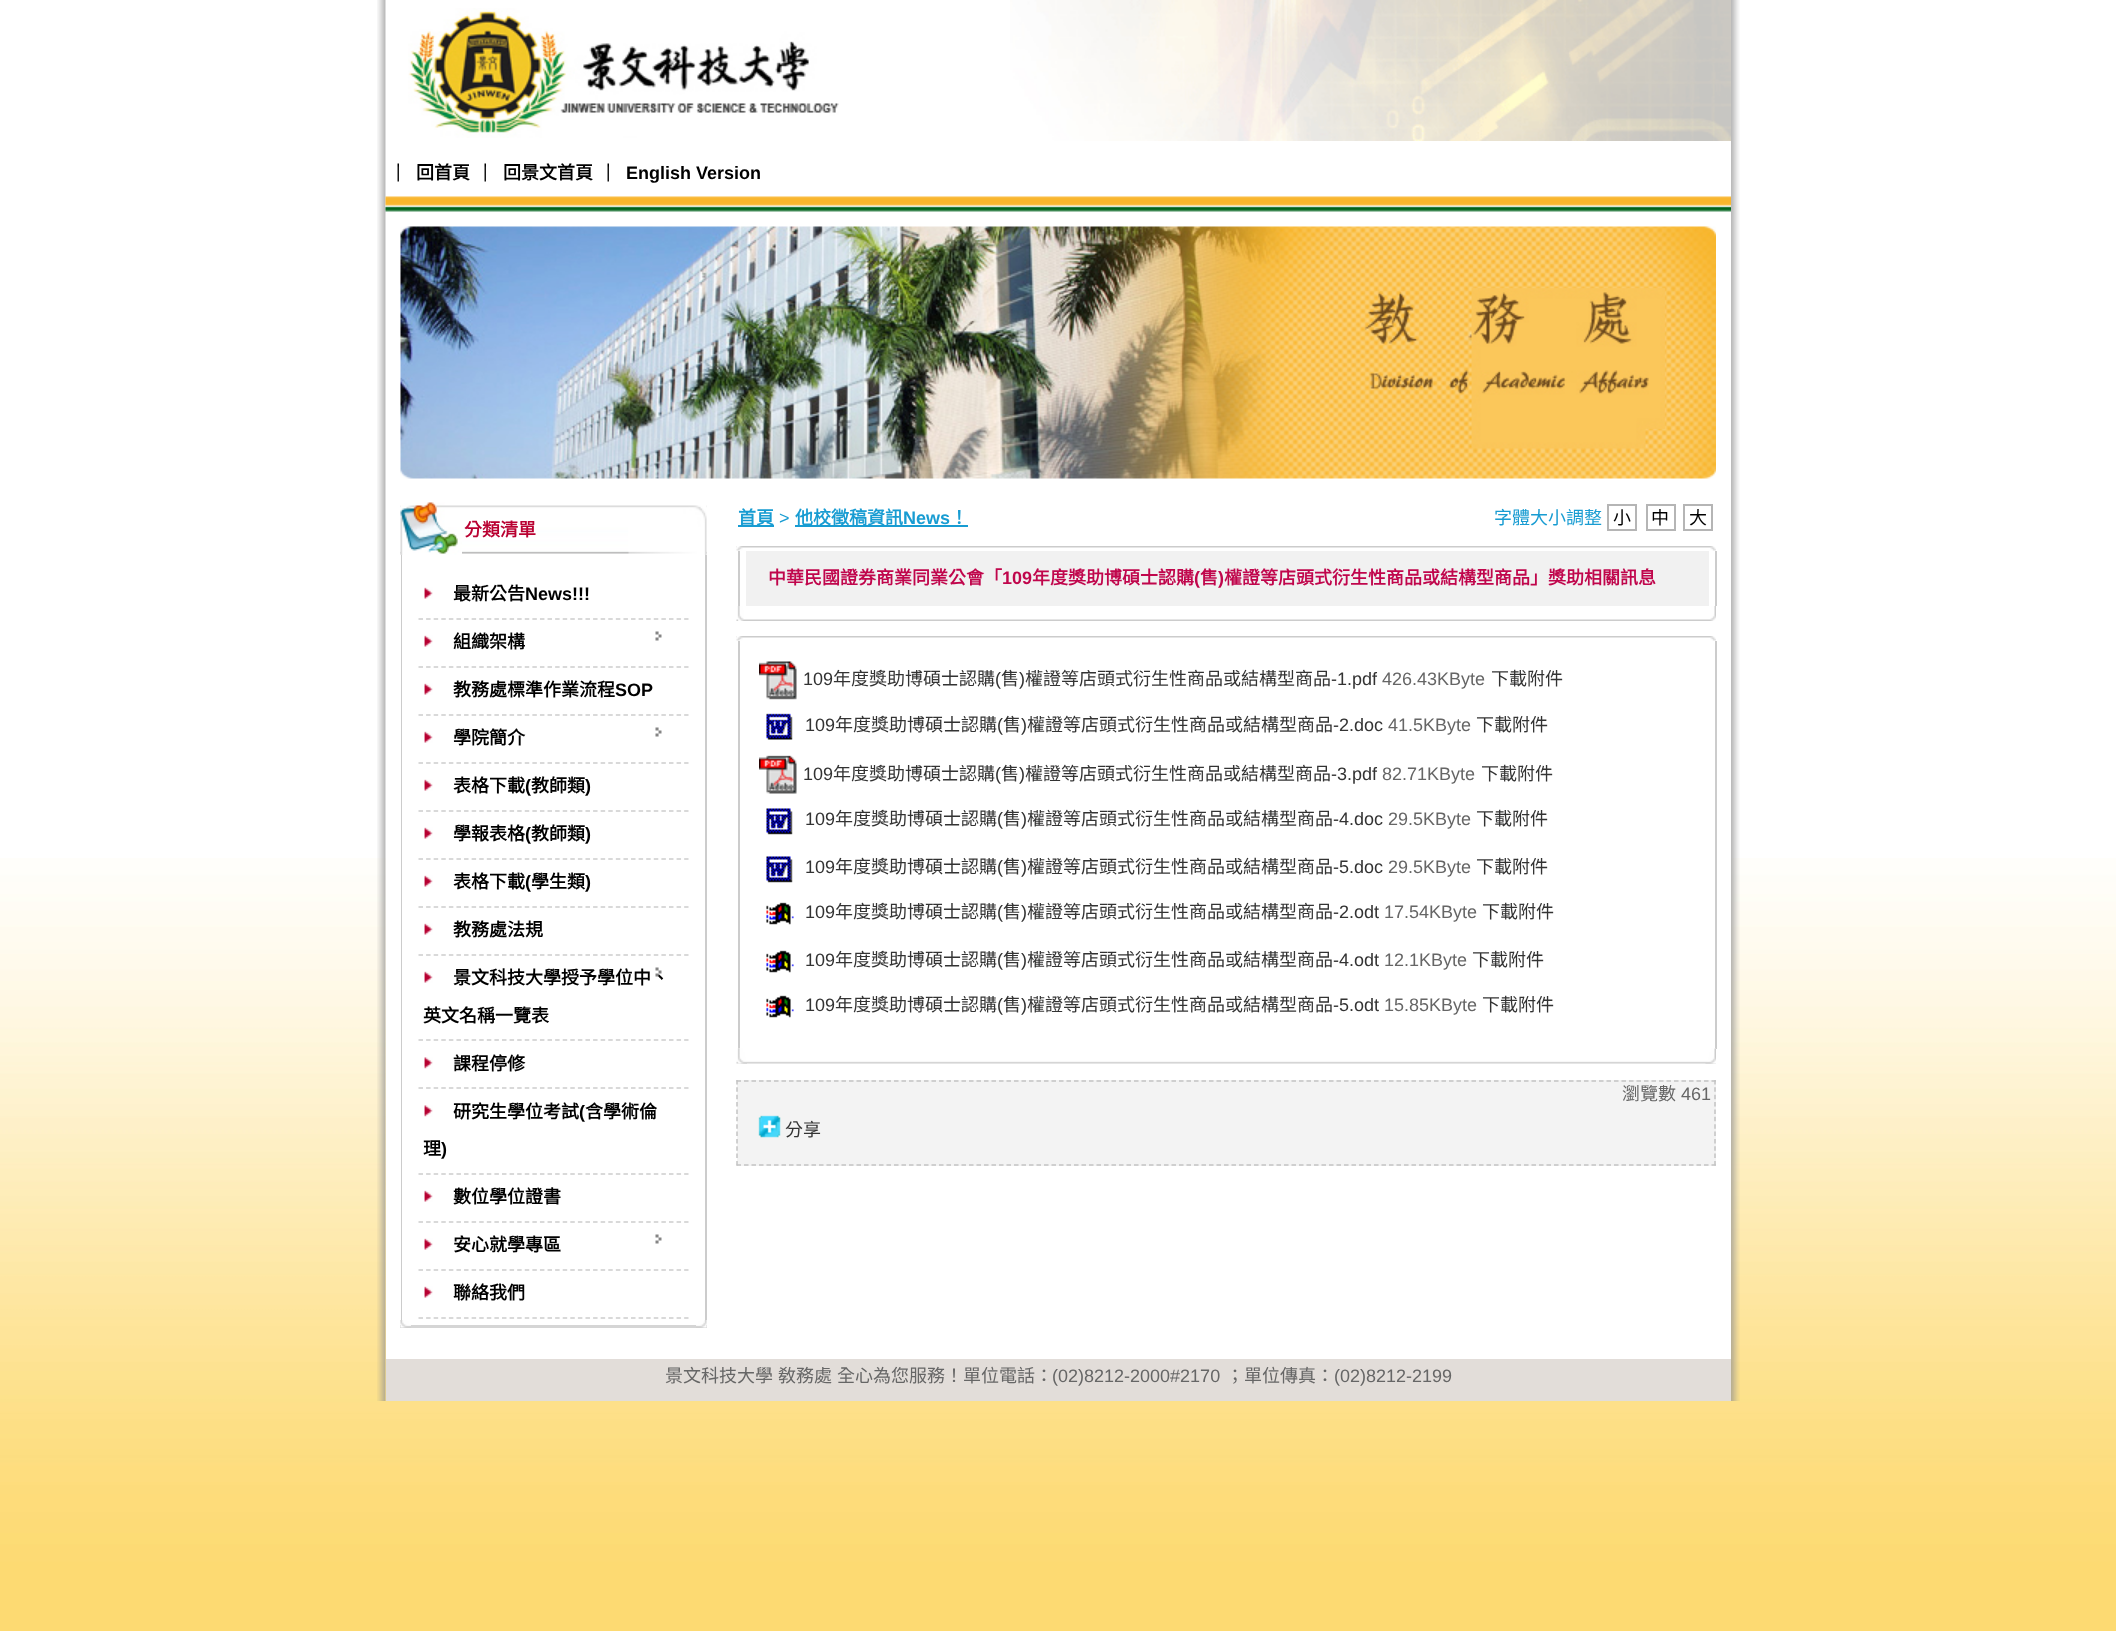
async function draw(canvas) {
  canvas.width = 2116;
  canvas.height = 1631;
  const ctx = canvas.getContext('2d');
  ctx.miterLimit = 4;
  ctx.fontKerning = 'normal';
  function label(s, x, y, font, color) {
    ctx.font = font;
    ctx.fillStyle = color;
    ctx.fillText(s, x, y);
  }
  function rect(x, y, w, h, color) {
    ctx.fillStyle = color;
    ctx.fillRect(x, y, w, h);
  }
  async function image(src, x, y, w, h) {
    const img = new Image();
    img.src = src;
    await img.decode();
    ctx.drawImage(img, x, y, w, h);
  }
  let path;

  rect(0, 0, 2116, 1631, '#fff');
  await image('assets/img1.png', 0, 858, 2116, 773);
  await image('assets/img2.png', 377, 0, 9, 1401);
  await image('assets/img3.png', 1731, 0, 9, 1401);
  rect(386, 858, 1345, 501, '#fff');
  await image('assets/img4.png', 1010, 0, 721, 141);
  await image('assets/img5.png', 408, 8, 431, 130);
  await image('assets/img6.png', 400, 226, 1316, 253);
  await image('assets/img7.png', 385, 196, 1346, 16);
  await image('assets/img8.png', 397, 163, 2, 19);
  label('回首頁', 416, 179, 'bold 18px Noto Sans CJK TC', '#000');
  await image('assets/img8.png', 484, 163, 2, 19);
  label('回景文首頁', 503, 179, 'bold 18px Noto Sans CJK TC', '#000');
  await image('assets/img8.png', 607, 163, 2, 19);
  label('English Version', 626, 179, 'bold 18px Liberation Sans', '#000');
  await image('assets/img9.png', 400, 505, 307, 49);
  await image('assets/img10.png', 400, 502, 62, 53);
  await image('assets/img11.png', 628, 505, 79, 50);
  label('分類清單', 464, 536, 'bold 18px Noto Sans CJK TC', '#b90031');
  rect(705, 555, 2, 765, '#ccc');
  rect(401, 555, 1, 765, '#ccc');
  await image('assets/img12.png', 424, 587, 9, 12);
  path = new Path2D('M418.5 619H688.5');
  ctx.strokeStyle = '#cdcdcd';
  ctx.lineWidth = 1.5;
  ctx.setLineDash([4.5, 3.09]);
  ctx.stroke(path);
  label('最新公告', 453, 600, 'bold 18px Noto Sans CJK TC', '#000');
  label('News!!!', 525, 600, 'bold 18px Liberation Sans', '#000');
  await image('assets/img12.png', 424, 635, 9, 12);
  path = new Path2D('M418.5 667H688.5');
  ctx.stroke(path);
  label('組織架構', 453, 648, 'bold 18px Noto Sans CJK TC', '#000');
  await image('assets/img13.png', 655, 631, 7, 10);
  await image('assets/img12.png', 424, 683, 9, 12);
  path = new Path2D('M418.5 715H688.5');
  ctx.stroke(path);
  label('教務處標準作業流程', 453, 696, 'bold 18px Noto Sans CJK TC', '#000');
  label('SOP', 615, 696, 'bold 18px Liberation Sans', '#000');
  await image('assets/img12.png', 424, 731, 9, 12);
  path = new Path2D('M418.5 763H688.5');
  ctx.stroke(path);
  label('學院簡介', 453, 744, 'bold 18px Noto Sans CJK TC', '#000');
  await image('assets/img13.png', 655, 727, 7, 10);
  await image('assets/img12.png', 424, 779, 9, 12);
  path = new Path2D('M418.5 811H688.5');
  ctx.stroke(path);
  label('表格下載', 453, 792, 'bold 18px Noto Sans CJK TC', '#000');
  label('(', 525, 792, 'bold 18px Liberation Sans', '#000');
  label('教師類', 531, 792, 'bold 18px Noto Sans CJK TC', '#000');
  label(')', 585, 792, 'bold 18px Liberation Sans', '#000');
  await image('assets/img12.png', 424, 827, 9, 12);
  path = new Path2D('M418.5 859H688.5');
  ctx.stroke(path);
  label('學報表格', 453, 840, 'bold 18px Noto Sans CJK TC', '#000');
  label('(', 525, 840, 'bold 18px Liberation Sans', '#000');
  label('教師類', 531, 840, 'bold 18px Noto Sans CJK TC', '#000');
  label(')', 585, 840, 'bold 18px Liberation Sans', '#000');
  await image('assets/img12.png', 424, 875, 9, 12);
  path = new Path2D('M418.5 907H688.5');
  ctx.stroke(path);
  label('表格下載', 453, 888, 'bold 18px Noto Sans CJK TC', '#000');
  label('(', 525, 888, 'bold 18px Liberation Sans', '#000');
  label('學生類', 531, 888, 'bold 18px Noto Sans CJK TC', '#000');
  label(')', 585, 888, 'bold 18px Liberation Sans', '#000');
  await image('assets/img12.png', 424, 923, 9, 12);
  path = new Path2D('M418.5 955H688.5');
  ctx.stroke(path);
  label('教務處法規', 453, 936, 'bold 18px Noto Sans CJK TC', '#000');
  await image('assets/img12.png', 424, 971, 9, 12);
  path = new Path2D('M418.5 1040H688.5');
  ctx.stroke(path);
  label('景文科技大學授予學位中、', 453, 984, 'bold 18px Noto Sans CJK TC', '#000');
  await image('assets/img14.png', 655, 967, 7, 10);
  label('英文名稱一覽表', 423, 1022, 'bold 18px Noto Sans CJK TC', '#000');
  await image('assets/img15.png', 424, 1057, 9, 12);
  path = new Path2D('M418.5 1088H688.5');
  ctx.stroke(path);
  label('課程停修', 453, 1070, 'bold 18px Noto Sans CJK TC', '#000');
  await image('assets/img15.png', 424, 1105, 9, 12);
  path = new Path2D('M418.5 1174H688.5');
  ctx.stroke(path);
  label('研究生學位考試', 453, 1118, 'bold 18px Noto Sans CJK TC', '#000');
  label('(', 579, 1118, 'bold 18px Liberation Sans', '#000');
  label('含學術倫', 585, 1118, 'bold 18px Noto Sans CJK TC', '#000');
  label('理', 423, 1155, 'bold 18px Noto Sans CJK TC', '#000');
  label(')', 441, 1155, 'bold 18px Liberation Sans', '#000');
  await image('assets/img12.png', 424, 1190, 9, 12);
  path = new Path2D('M418.5 1222H688.5');
  ctx.stroke(path);
  label('數位學位證書', 453, 1203, 'bold 18px Noto Sans CJK TC', '#000');
  await image('assets/img12.png', 424, 1238, 9, 12);
  path = new Path2D('M418.5 1270H688.5');
  ctx.stroke(path);
  label('安心就學專區', 453, 1251, 'bold 18px Noto Sans CJK TC', '#000');
  await image('assets/img13.png', 655, 1234, 7, 10);
  await image('assets/img12.png', 424, 1286, 9, 12);
  path = new Path2D('M418.5 1318H688.5');
  ctx.stroke(path);
  label('聯絡我們', 453, 1299, 'bold 18px Noto Sans CJK TC', '#000');
  rect(400, 1325, 307, 3, '#d5d5d5');
  await image('assets/img16.png', 400, 1320, 11, 8);
  await image('assets/img17.png', 696, 1320, 11, 8);
  rect(738, 525, 36, 2, '#189cd2');
  label('首頁', 738, 524, 'bold 18px Noto Sans CJK TC', '#189cd2');
  label('>', 779, 524, '18px Liberation Sans', '#189cd2');
  rect(795, 525, 173, 2, '#189cd2');
  label('他校徵稿資訊', 795, 524, 'bold 18px Noto Sans CJK TC', '#189cd2');
  label('News', 903, 524, 'bold 18px Liberation Sans', '#189cd2');
  label('！', 950, 524, 'bold 18px Noto Sans CJK TC', '#189cd2');
  label('字體大小調整', 1494, 524, '18px Noto Sans CJK TC', '#189cd2');
  ctx.strokeStyle = '#b5b5b5';
  ctx.lineWidth = 2;
  ctx.setLineDash([]);
  ctx.strokeRect(1608, 505, 28, 25);
  label('小', 1613, 524, '18px Noto Sans CJK TC', '#000');
  ctx.strokeRect(1647, 505, 28, 25);
  label('中', 1651, 524, '18px Noto Sans CJK TC', '#000');
  ctx.strokeRect(1684, 505, 28, 25);
  label('大', 1689, 524, '18px Noto Sans CJK TC', '#000');
  await image('assets/img18.png', 736, 546, 974, 2);
  await image('assets/img19.png', 736, 546, 7, 5);
  await image('assets/img20.png', 1710, 546, 6, 5);
  rect(1715, 551, 2, 55, '#ccc');
  rect(738, 551, 2, 55, '#ccc');
  rect(746, 551, 963, 55, '#f1f1f1');
  label('中華民國證券商業同業公會「', 768, 584, 'bold 18px Noto Sans CJK TC', '#c0064c');
  label('109', 1002, 584, 'bold 18px Liberation Sans', '#c0064c');
  label('年度獎助博碩士認購', 1032, 584, 'bold 18px Noto Sans CJK TC', '#c0064c');
  label('(', 1194, 584, 'bold 18px Liberation Sans', '#c0064c');
  label('售', 1200, 584, 'bold 18px Noto Sans CJK TC', '#c0064c');
  label(')', 1218, 584, 'bold 18px Liberation Sans', '#c0064c');
  label('權證等店頭式衍生性商品或結構型商品」獎助相關訊息', 1224, 584, 'bold 18px Noto Sans CJK TC', '#c0064c');
  await image('assets/img21.png', 736, 619, 974, 2);
  await image('assets/img22.png', 737, 606, 7, 15);
  await image('assets/img23.png', 1710, 606, 6, 15);
  await image('assets/img18.png', 736, 636, 974, 2);
  await image('assets/img19.png', 736, 636, 7, 5);
  await image('assets/img20.png', 1710, 636, 6, 5);
  rect(1715, 641, 2, 408, '#ccc');
  rect(738, 641, 2, 408, '#ccc');
  await image('assets/img24.png', 759, 661, 38, 39);
  label('109', 803, 685, '18px Liberation Sans', '#333');
  label('年度獎助博碩士認購', 833, 685, '18px Noto Sans CJK TC', '#333');
  label('(', 995, 685, '18px Liberation Sans', '#333');
  label('售', 1001, 685, '18px Noto Sans CJK TC', '#333');
  label(')', 1019, 685, '18px Liberation Sans', '#333');
  label('權證等店頭式衍生性商品或結構型商品', 1025, 685, '18px Noto Sans CJK TC', '#333');
  label('-1.pdf', 1331, 685, '18px Liberation Sans', '#333');
  label('426.43KByte', 1382, 685, '18px Liberation Sans', '#666');
  label('下載附件', 1491, 685, '18px Noto Sans CJK TC', '#333');
  await image('assets/img25.png', 766, 713, 27, 27);
  label('109', 805, 731, '18px Liberation Sans', '#333');
  label('年度獎助博碩士認購', 835, 731, '18px Noto Sans CJK TC', '#333');
  label('(', 997, 731, '18px Liberation Sans', '#333');
  label('售', 1003, 731, '18px Noto Sans CJK TC', '#333');
  label(')', 1021, 731, '18px Liberation Sans', '#333');
  label('權證等店頭式衍生性商品或結構型商品', 1027, 731, '18px Noto Sans CJK TC', '#333');
  label('-2.doc', 1333, 731, '18px Liberation Sans', '#333');
  label('41.5KByte', 1388, 731, '18px Liberation Sans', '#666');
  label('下載附件', 1476, 731, '18px Noto Sans CJK TC', '#333');
  await image('assets/img26.png', 759, 755, 38, 39);
  label('109', 803, 780, '18px Liberation Sans', '#333');
  label('年度獎助博碩士認購', 833, 780, '18px Noto Sans CJK TC', '#333');
  label('(', 995, 780, '18px Liberation Sans', '#333');
  label('售', 1001, 780, '18px Noto Sans CJK TC', '#333');
  label(')', 1019, 780, '18px Liberation Sans', '#333');
  label('權證等店頭式衍生性商品或結構型商品', 1025, 780, '18px Noto Sans CJK TC', '#333');
  label('-3.pdf', 1331, 780, '18px Liberation Sans', '#333');
  label('82.71KByte', 1382, 780, '18px Liberation Sans', '#666');
  label('下載附件', 1481, 780, '18px Noto Sans CJK TC', '#333');
  await image('assets/img27.png', 766, 808, 27, 27);
  label('109', 805, 825, '18px Liberation Sans', '#333');
  label('年度獎助博碩士認購', 835, 825, '18px Noto Sans CJK TC', '#333');
  label('(', 997, 825, '18px Liberation Sans', '#333');
  label('售', 1003, 825, '18px Noto Sans CJK TC', '#333');
  label(')', 1021, 825, '18px Liberation Sans', '#333');
  label('權證等店頭式衍生性商品或結構型商品', 1027, 825, '18px Noto Sans CJK TC', '#333');
  label('-4.doc', 1333, 825, '18px Liberation Sans', '#333');
  label('29.5KByte', 1388, 825, '18px Liberation Sans', '#666');
  label('下載附件', 1476, 825, '18px Noto Sans CJK TC', '#333');
  await image('assets/img27.png', 766, 856, 27, 27);
  label('109', 805, 873, '18px Liberation Sans', '#333');
  label('年度獎助博碩士認購', 835, 873, '18px Noto Sans CJK TC', '#333');
  label('(', 997, 873, '18px Liberation Sans', '#333');
  label('售', 1003, 873, '18px Noto Sans CJK TC', '#333');
  label(')', 1021, 873, '18px Liberation Sans', '#333');
  label('權證等店頭式衍生性商品或結構型商品', 1027, 873, '18px Noto Sans CJK TC', '#333');
  label('-5.doc', 1333, 873, '18px Liberation Sans', '#333');
  label('29.5KByte', 1388, 873, '18px Liberation Sans', '#666');
  label('下載附件', 1476, 873, '18px Noto Sans CJK TC', '#333');
  await image('assets/img28.png', 766, 902, 28, 23);
  label('109', 805, 918, '18px Liberation Sans', '#333');
  label('年度獎助博碩士認購', 835, 918, '18px Noto Sans CJK TC', '#333');
  label('(', 997, 918, '18px Liberation Sans', '#333');
  label('售', 1003, 918, '18px Noto Sans CJK TC', '#333');
  label(')', 1021, 918, '18px Liberation Sans', '#333');
  label('權證等店頭式衍生性商品或結構型商品', 1027, 918, '18px Noto Sans CJK TC', '#333');
  label('-2.odt', 1333, 918, '18px Liberation Sans', '#333');
  label('17.54KByte', 1384, 918, '18px Liberation Sans', '#666');
  label('下載附件', 1482, 918, '18px Noto Sans CJK TC', '#333');
  await image('assets/img28.png', 766, 950, 28, 23);
  label('109', 805, 966, '18px Liberation Sans', '#333');
  label('年度獎助博碩士認購', 835, 966, '18px Noto Sans CJK TC', '#333');
  label('(', 997, 966, '18px Liberation Sans', '#333');
  label('售', 1003, 966, '18px Noto Sans CJK TC', '#333');
  label(')', 1021, 966, '18px Liberation Sans', '#333');
  label('權證等店頭式衍生性商品或結構型商品', 1027, 966, '18px Noto Sans CJK TC', '#333');
  label('-4.odt', 1333, 966, '18px Liberation Sans', '#333');
  label('12.1KByte', 1384, 966, '18px Liberation Sans', '#666');
  label('下載附件', 1472, 966, '18px Noto Sans CJK TC', '#333');
  await image('assets/img28.png', 766, 995, 28, 23);
  label('109', 805, 1011, '18px Liberation Sans', '#333');
  label('年度獎助博碩士認購', 835, 1011, '18px Noto Sans CJK TC', '#333');
  label('(', 997, 1011, '18px Liberation Sans', '#333');
  label('售', 1003, 1011, '18px Noto Sans CJK TC', '#333');
  label(')', 1021, 1011, '18px Liberation Sans', '#333');
  label('權證等店頭式衍生性商品或結構型商品', 1027, 1011, '18px Noto Sans CJK TC', '#333');
  label('-5.odt', 1333, 1011, '18px Liberation Sans', '#333');
  label('15.85KByte', 1384, 1011, '18px Liberation Sans', '#666');
  label('下載附件', 1482, 1011, '18px Noto Sans CJK TC', '#333');
  await image('assets/img29.png', 736, 1048, 980, 16);
  await image('assets/img30.png', 737, 1048, 10, 16);
  await image('assets/img31.png', 1705, 1048, 11, 16);
  rect(737, 1080, 979, 86, '#f3f3f3');
  label('瀏覽數', 1622, 1100, '18px Noto Sans CJK TC', '#666');
  label('461', 1681, 1100, '18px Liberation Sans', '#666');
  path = new Path2D('M736.5 1081H1716');
  ctx.strokeStyle = '#c3c3c3';
  ctx.lineWidth = 1.5;
  ctx.setLineDash([4.5, 3]);
  ctx.stroke(path);
  path = new Path2D('M1715 1080V1165.5');
  ctx.setLineDash([4.5, 2.86]);
  ctx.stroke(path);
  path = new Path2D('M736.5 1165H1716');
  ctx.setLineDash([4.5, 3]);
  ctx.stroke(path);
  path = new Path2D('M737 1080V1165.5');
  ctx.setLineDash([4.5, 2.86]);
  ctx.stroke(path);
  await image('assets/img32.png', 758, 1115, 23, 23);
  label('分享', 785, 1136, '18px Noto Sans CJK TC', '#333');
  rect(386, 1359, 1345, 42, '#e2ddd9');
  ctx.wordSpacing = '1px';
  label('景文科技大學 敎務處 全心為您服務！單位電話：', 665, 1382, '18px Noto Sans CJK TC', '#666');
  ctx.wordSpacing = '0px';
  label('(02)8212-2000#2170', 1052, 1382, '18px Liberation Sans', '#666');
  label('；單位傳真：', 1226, 1382, '18px Noto Sans CJK TC', '#666');
  label('(02)8212-2199', 1334, 1382, '18px Liberation Sans', '#666');
}

draw(document.querySelector('canvas'));
